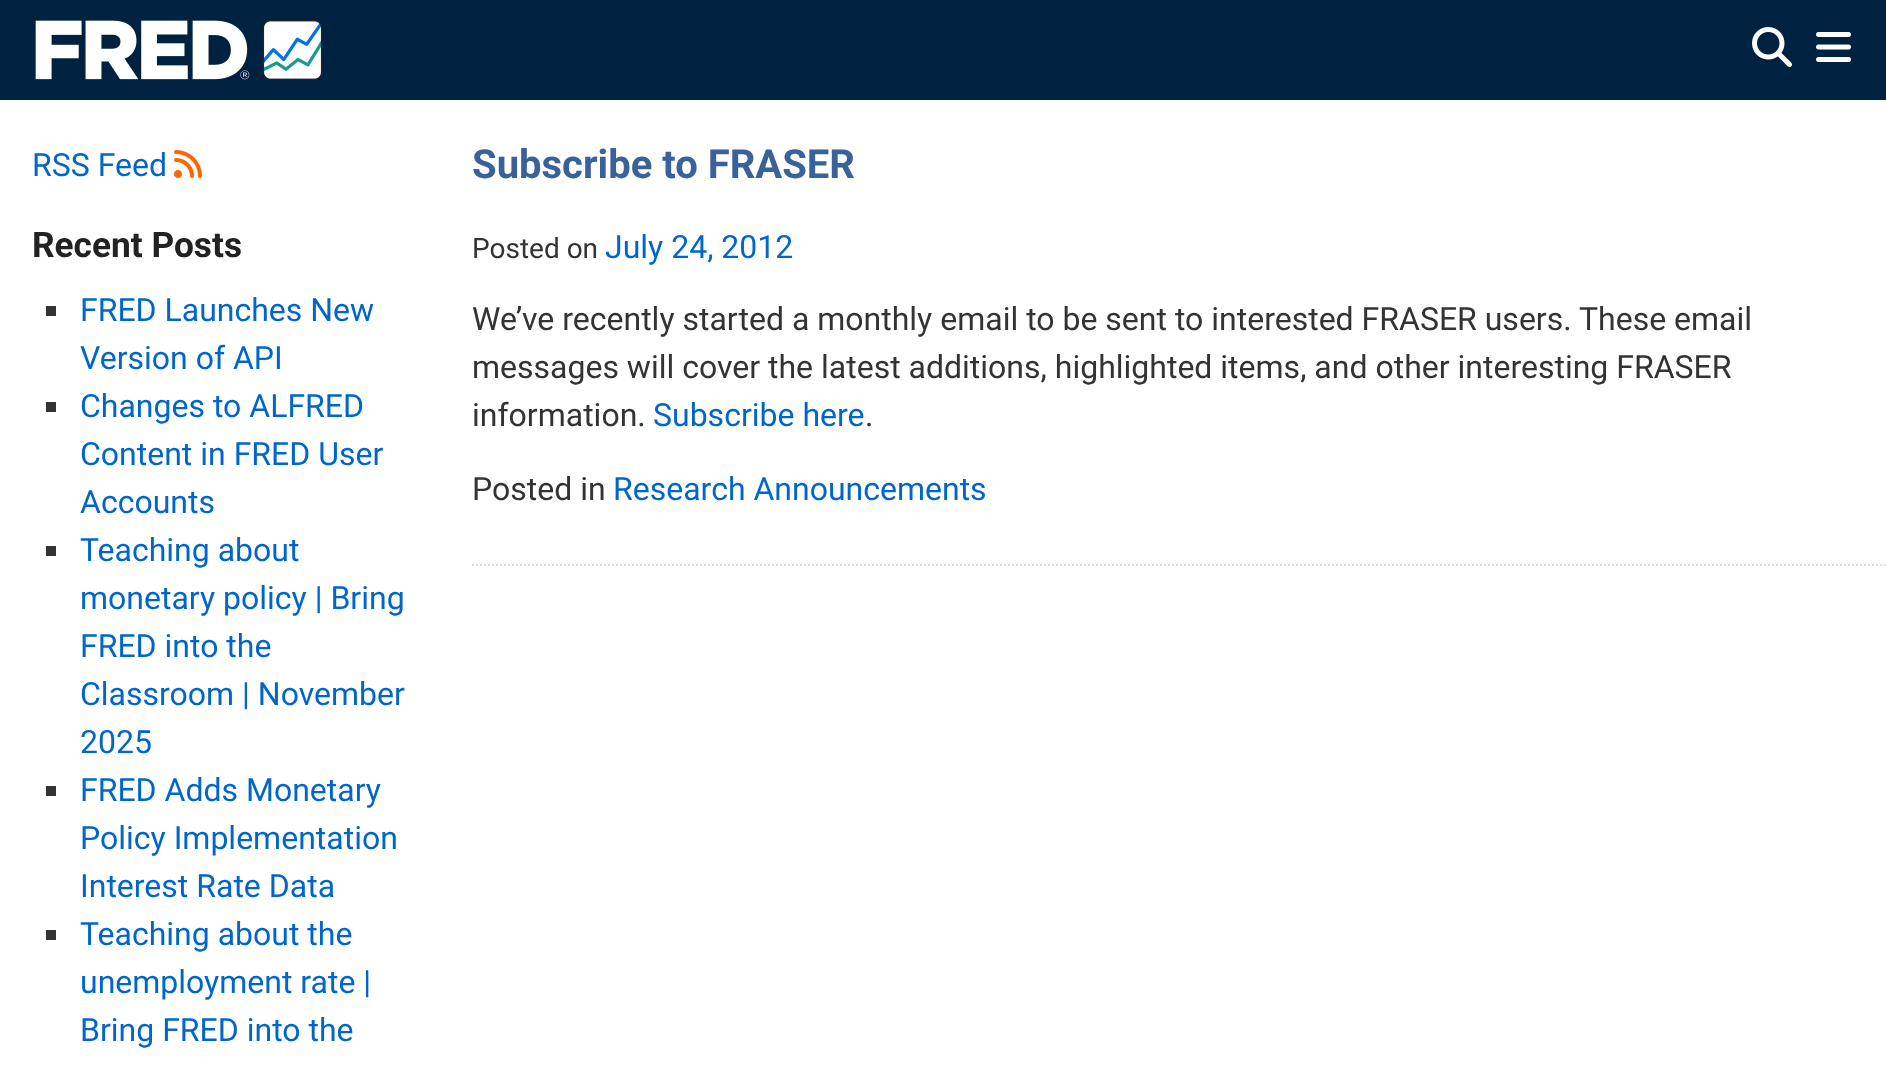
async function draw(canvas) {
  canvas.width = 1886;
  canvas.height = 1080;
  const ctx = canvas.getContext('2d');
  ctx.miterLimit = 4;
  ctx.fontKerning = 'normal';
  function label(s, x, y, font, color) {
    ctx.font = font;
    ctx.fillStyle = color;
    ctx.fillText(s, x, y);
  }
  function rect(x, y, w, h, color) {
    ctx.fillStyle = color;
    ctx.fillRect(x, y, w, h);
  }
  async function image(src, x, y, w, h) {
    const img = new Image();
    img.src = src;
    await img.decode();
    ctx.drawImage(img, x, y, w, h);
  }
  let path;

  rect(0, 0, 1886, 1080, '#fff');
  rect(0, 0, 1886, 100, '#002241');
  await image('assets/img1.png', 35, 20, 288, 60);
  await image('assets/img2.png', 1752, 27, 40, 40);
  await image('assets/img3.png', 1816, 32, 35, 30);
  label('RSS Feed', 32, 176, '32px Roboto', '#06c');
  await image('assets/img4.png', 174, 150, 28, 28);
  label('Recent Posts', 32, 257, 'bold 35.25px Roboto', '#222');
  rect(46, 306, 10, 10, '#333');
  label('FRED Launches New', 80, 321, '32px Roboto', '#06c');
  label('Version of API', 80, 369, '32px Roboto', '#06c');
  rect(46, 402, 10, 10, '#333');
  label('Changes to ALFRED', 80, 417, '32px Roboto', '#06c');
  label('Content in FRED User', 80, 465, '32px Roboto', '#06c');
  label('Accounts', 80, 513, '32px Roboto', '#06c');
  rect(46, 546, 10, 10, '#333');
  label('Teaching about', 80, 561, '32px Roboto', '#06c');
  label('monetary policy | Bring', 80, 609, '32px Roboto', '#06c');
  label('FRED into the', 80, 657, '32px Roboto', '#06c');
  label('Classroom | November', 80, 705, '32px Roboto', '#06c');
  label('2025', 80, 753, '32px Roboto', '#06c');
  rect(46, 786, 10, 10, '#333');
  label('FRED Adds Monetary', 80, 801, '32px Roboto', '#06c');
  label('Policy Implementation', 80, 849, '32px Roboto', '#06c');
  label('Interest Rate Data', 80, 897, '32px Roboto', '#06c');
  rect(46, 930, 10, 10, '#333');
  label('Teaching about the', 80, 945, '32px Roboto', '#06c');
  label('unemployment rate |', 80, 993, '32px Roboto', '#06c');
  label('Bring FRED into the', 80, 1041, '32px Roboto', '#06c');
  label('Subscribe to FRASER', 472, 178, 'bold 40px Roboto', '#39619a');
  label('Posted on', 472, 258, '28px Roboto', '#333');
  label('July 24, 2012', 605, 258, '32px Roboto', '#06c');
  label('We’ve recently started a monthly email to be sent to interested FRASER users. These email', 472, 330, '32px Roboto', '#333');
  label('messages will cover the latest additions, highlighted items, and other interesting FRASER', 472, 378, '32px Roboto', '#333');
  label('information.', 472, 426, '32px Roboto', '#333');
  label('Subscribe here', 653, 426, '32px Roboto', '#06c');
  label('.', 865, 426, '32px Roboto', '#333');
  path = new Path2D('M472 565H1886');
  ctx.strokeStyle = '#ddd';
  ctx.lineWidth = 2;
  ctx.setLineDash([2, 2]);
  ctx.stroke(path);
  label('Posted in', 472, 500, '32px Roboto', '#333');
  label('Research Announcements', 613, 500, '32px Roboto', '#06c');
}

draw(document.querySelector('canvas'));
